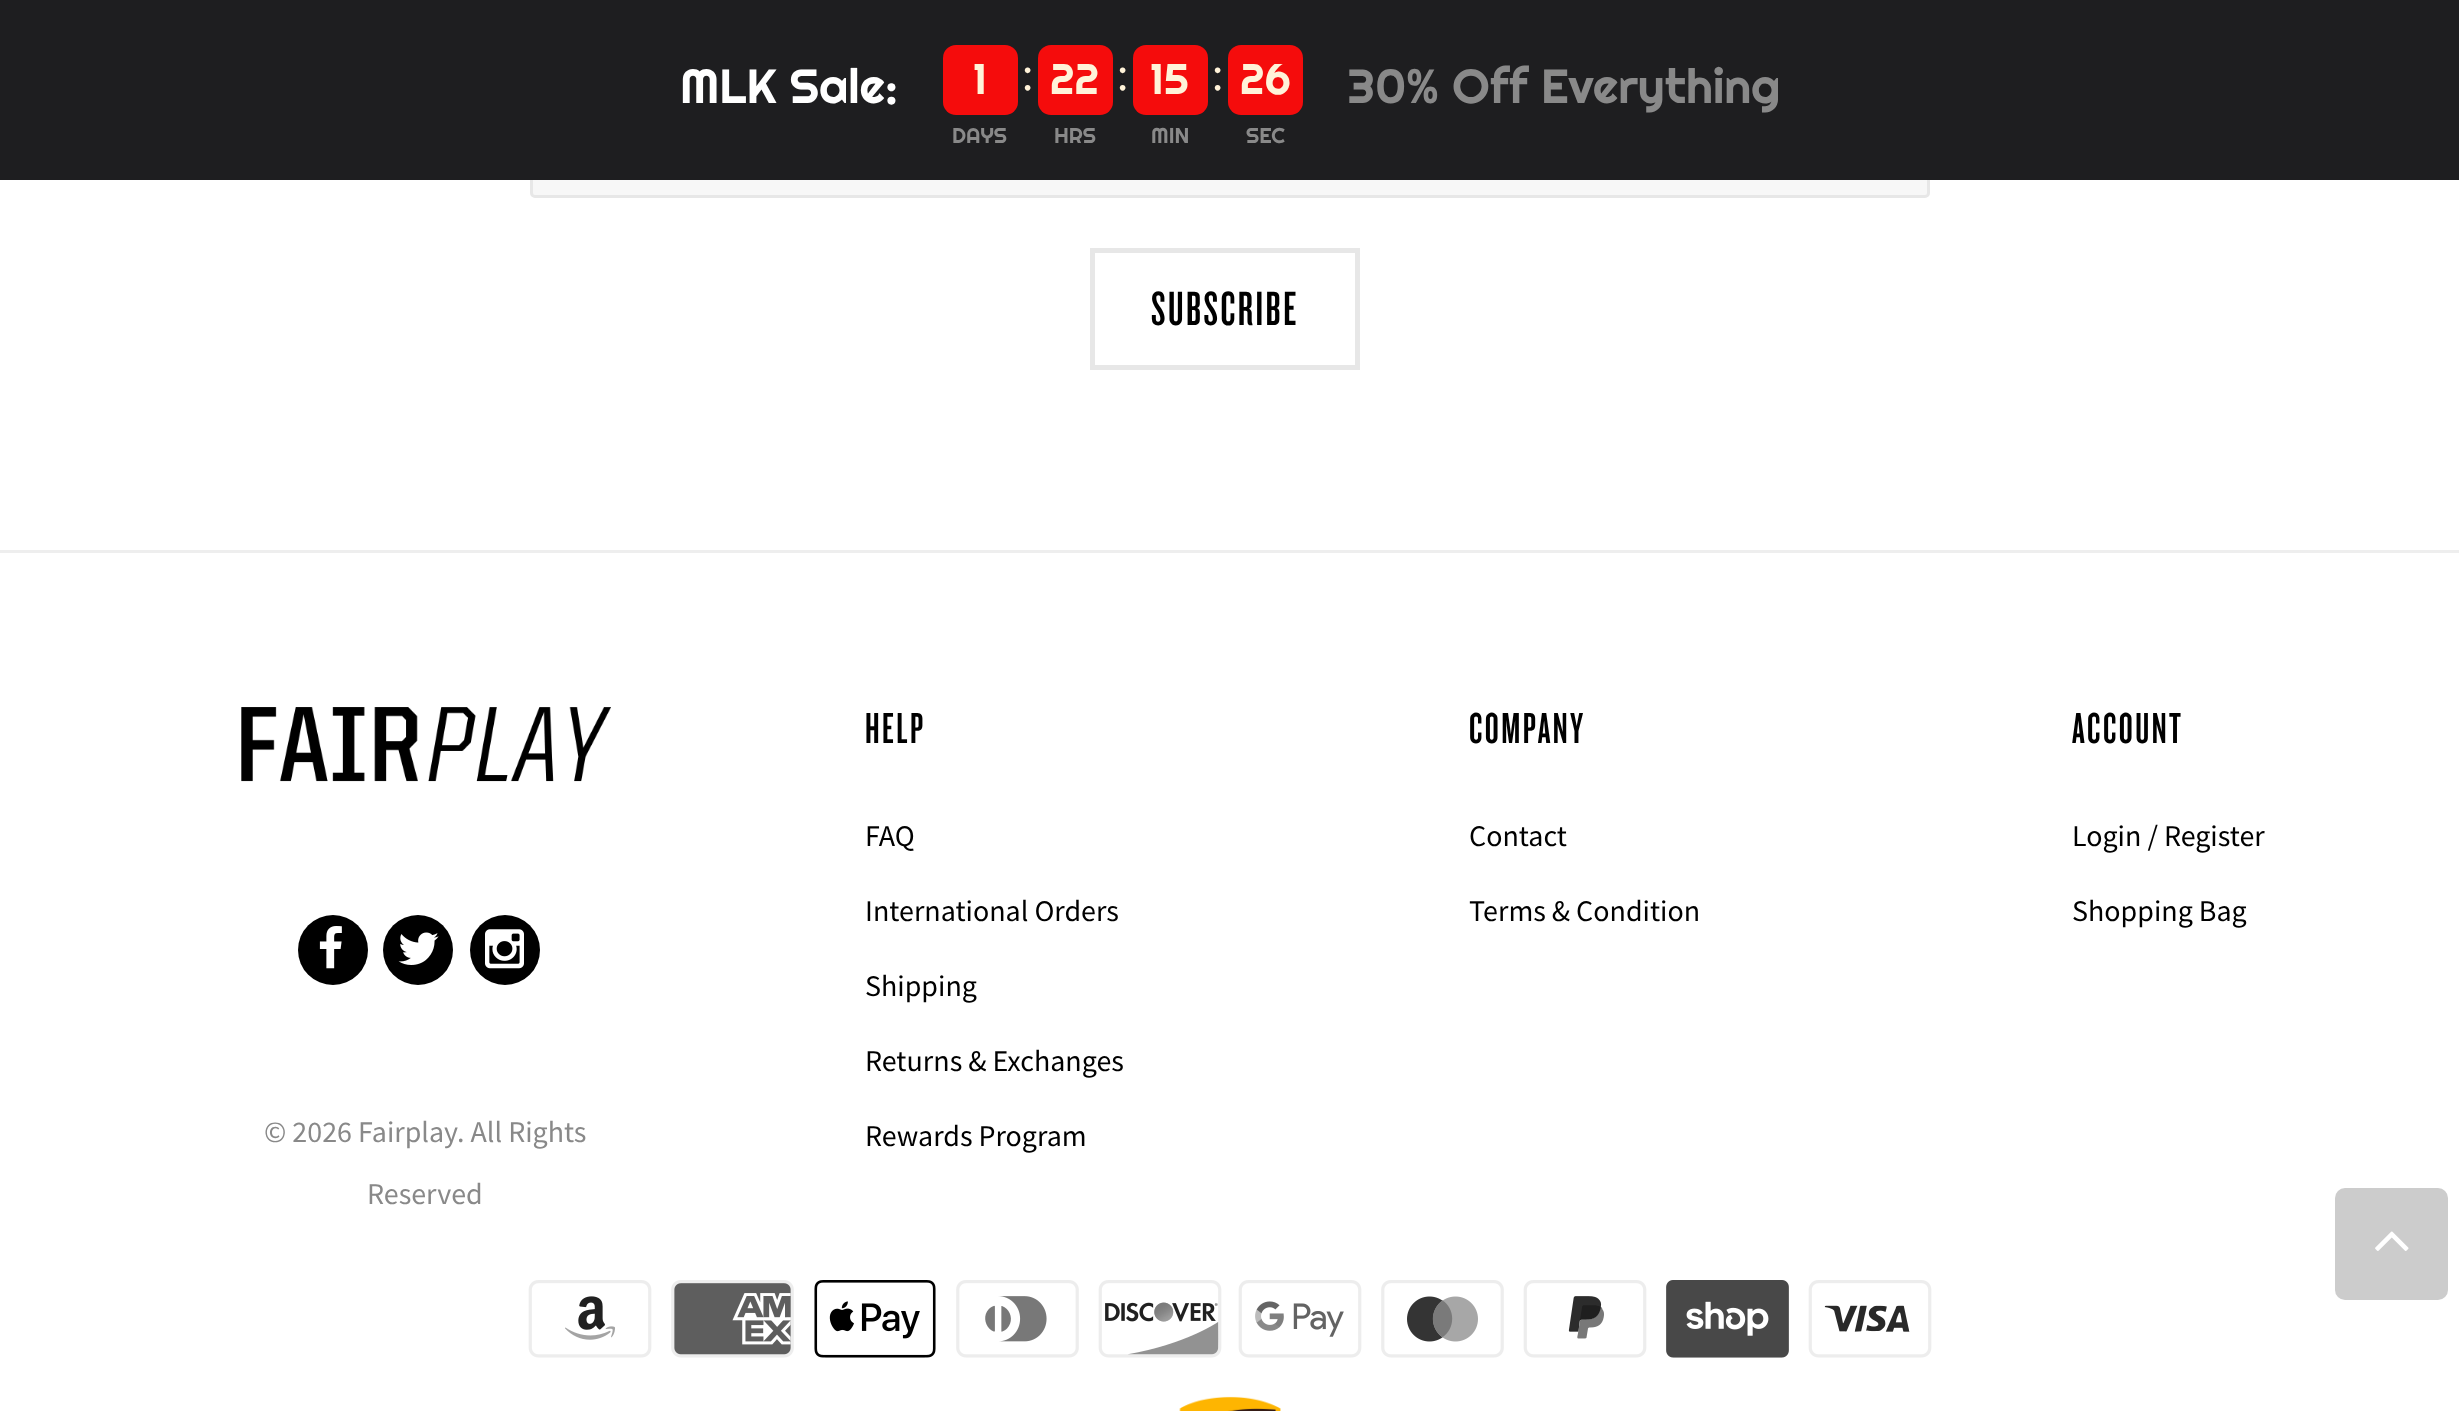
async function draw(canvas) {
  canvas.width = 2459;
  canvas.height = 1411;
  const ctx = canvas.getContext('2d');
  ctx.miterLimit = 4;
  ctx.fontKerning = 'normal';
  function label(s, x, y, font, color) {
    ctx.font = font;
    ctx.fillStyle = color;
    ctx.fillText(s, x, y);
  }
  function rect(x, y, w, h, color) {
    ctx.fillStyle = color;
    ctx.fillRect(x, y, w, h);
  }
  function roundedRect(x, y, w, h, r, color) {
    ctx.fillStyle = color;
    ctx.beginPath();
    ctx.roundRect(x, y, w, h, r);
    ctx.fill();
  }
  async function image(src, x, y, w, h) {
    const img = new Image();
    img.src = src;
    await img.decode();
    ctx.drawImage(img, x, y, w, h);
  }

  rect(0, 0, 2459, 1411, '#fff');
  ctx.fillStyle = '#f7f7f7';
  ctx.beginPath();
  ctx.roundRect(531.5, 74.5, 1397, 122, 3.5);
  ctx.fill();
  ctx.strokeStyle = '#e7e7e7';
  ctx.lineWidth = 3;
  ctx.stroke();
  rect(0, 0, 2459, 180, '#1e1e20');
  label('MLK Sale:', 680, 103, '48px Righteous', '#fff');
  roundedRect(943, 45, 75, 70, 13, '#f50c0c');
  label('1', 973, 94, '43px Righteous', '#fff3d9');
  label(':', 1021, 90, '48px Liberation Serif', '#fff3d9');
  roundedRect(1038, 45, 75, 70, 13, '#f50c0c');
  label('22', 1050, 94, '43px Righteous', '#fff3d9');
  label(':', 1116, 90, '48px Liberation Serif', '#fff3d9');
  roundedRect(1133, 45, 75, 70, 13, '#f50c0c');
  label('15', 1150, 94, '43px Righteous', '#fff3d9');
  label(':', 1211, 90, '48px Liberation Serif', '#fff3d9');
  roundedRect(1228, 45, 75, 70, 13, '#f50c0c');
  label('26', 1240, 94, '43px Righteous', '#fff3d9');
  label('DAYS', 952, 143, '21.5px Righteous', '#898989');
  label('HRS', 1054, 143, '21.5px Righteous', '#898989');
  label('MIN', 1151, 143, '21.5px Righteous', '#898989');
  label('SEC', 1246, 143, '21.5px Righteous', '#898989');
  label('30% Off Everything', 1347, 103, '48px Righteous', '#898989');
  ctx.lineWidth = 5;
  ctx.strokeRect(1092.5, 250.5, 265, 117);
  ctx.letterSpacing = '2.5px';
  label('SUBSCRIBE', 1151, 325, '500 50px "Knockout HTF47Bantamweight"', '#000');
  rect(0, 550, 2459, 3, '#eee');
  label('HELP', 865, 743, '500 45px "Knockout HTF47Bantamweight"', '#000');
  ctx.letterSpacing = '0px';
  label('FAQ', 865, 846, '30px Source Sans Pro', '#000');
  label('International Orders', 865, 921, '30px Source Sans Pro', '#000');
  label('Shipping', 865, 996, '30px Source Sans Pro', '#000');
  label('Returns & Exchanges', 865, 1071, '30px Source Sans Pro', '#000');
  label('Rewards Program', 865, 1146, '30px Source Sans Pro', '#000');
  ctx.letterSpacing = '2.5px';
  label('COMPANY', 1469, 743, '500 45px "Knockout HTF47Bantamweight"', '#000');
  ctx.letterSpacing = '0px';
  label('Contact', 1469, 846, '30px Source Sans Pro', '#000');
  label('Terms & Condition', 1469, 921, '30px Source Sans Pro', '#000');
  ctx.letterSpacing = '2.5px';
  label('ACCOUNT', 2072, 743, '500 45px "Knockout HTF47Bantamweight"', '#000');
  ctx.letterSpacing = '0px';
  label('Login / Register', 2072, 846, '30px Source Sans Pro', '#000');
  label('Shopping Bag', 2072, 921, '30px Source Sans Pro', '#000');
  await image('assets/img1.png', 241, 707, 370, 75);
  ctx.beginPath();
  ctx.arc(333, 950, 35, 0, 2 * Math.PI);
  ctx.fill();
  await image('assets/img2.png', 319, 926, 23, 43);
  ctx.beginPath();
  ctx.arc(418, 950, 35, 0, 2 * Math.PI);
  ctx.fill();
  await image('assets/img3.png', 398, 932, 41, 33);
  ctx.beginPath();
  ctx.arc(505, 950, 35, 0, 2 * Math.PI);
  ctx.fill();
  await image('assets/img4.png', 485, 929, 39, 40);
  label('© 2026 Fairplay. All Rights', 264, 1142, '30px Source Sans Pro', '#898989');
  label('Reserved', 367, 1204, '30px Source Sans Pro', '#898989');
  roundedRect(2335, 1188, 113, 112, 10, '#ccc');
  await image('assets/img5.png', 2375, 1231, 34, 20);
  await image('assets/img6.png', 528, 1280, 124, 78);
  await image('assets/img7.png', 671, 1280, 123, 78);
  await image('assets/img8.png', 814, 1280, 122, 78);
  await image('assets/img9.png', 956, 1280, 123, 78);
  await image('assets/img10.png', 1098, 1280, 124, 78);
  await image('assets/img11.png', 1238, 1280, 124, 78);
  await image('assets/img12.png', 1381, 1280, 123, 78);
  await image('assets/img13.png', 1523, 1280, 124, 78);
  await image('assets/img14.png', 1666, 1280, 123, 78);
  await image('assets/img15.png', 1808, 1280, 124, 78);
  await image('assets/img16.png', 1179, 1396, 102, 15);
}

draw(document.querySelector('canvas'));
